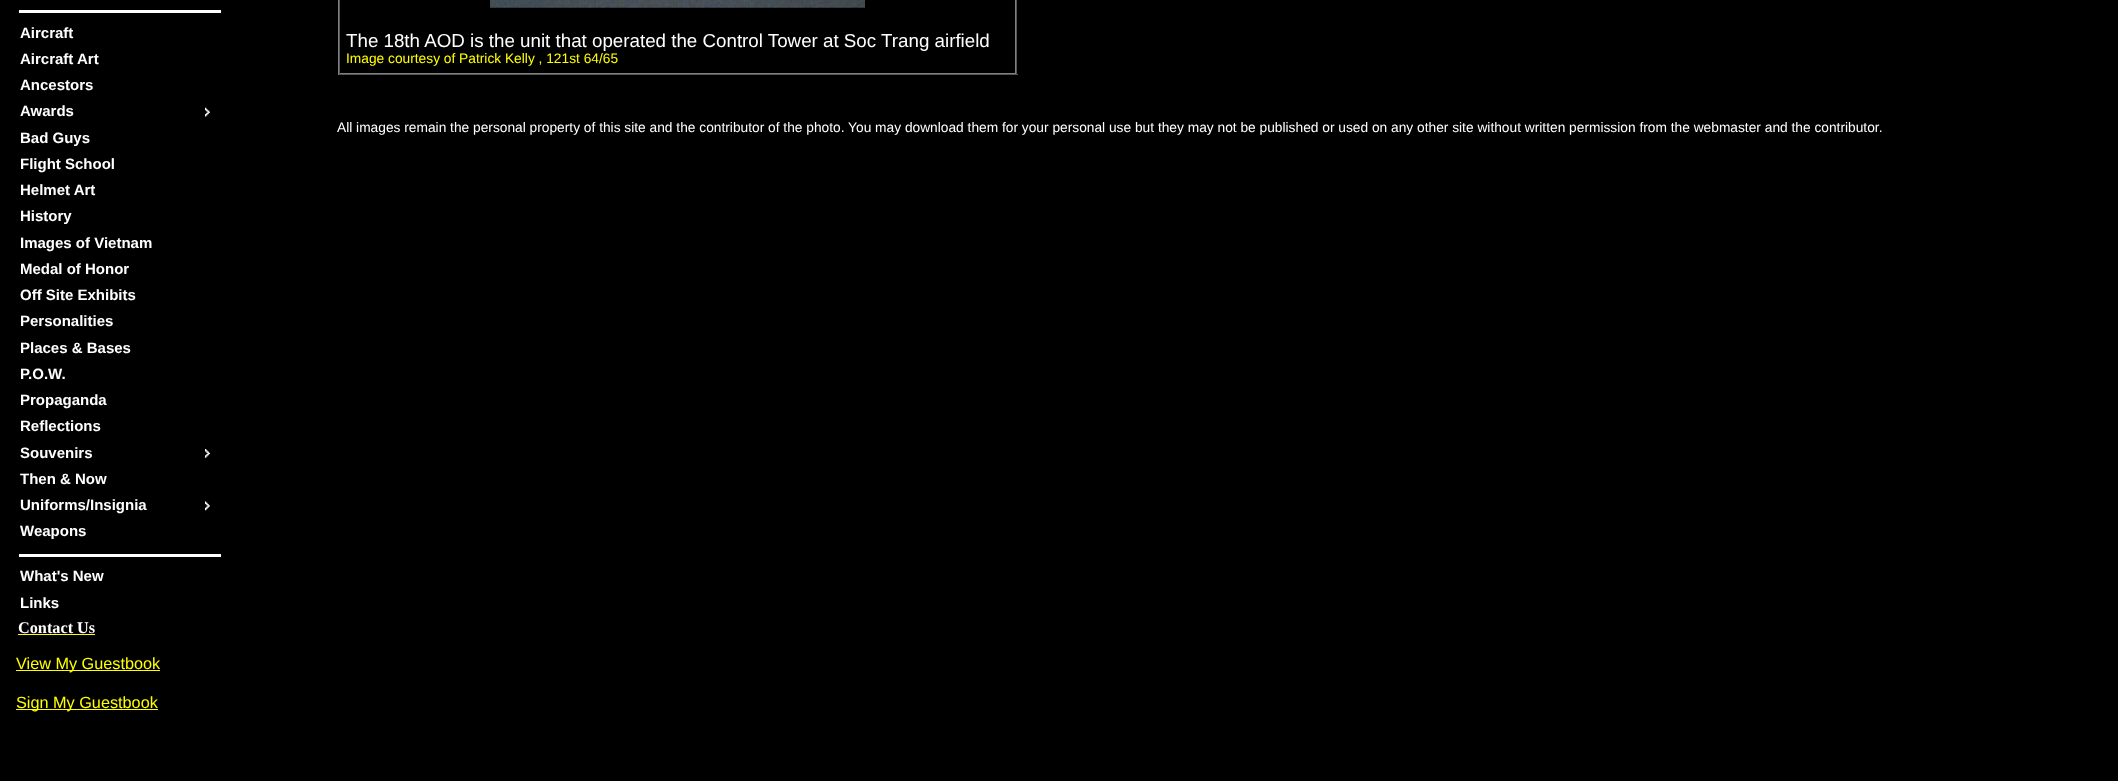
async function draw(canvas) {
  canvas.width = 2118;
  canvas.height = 781;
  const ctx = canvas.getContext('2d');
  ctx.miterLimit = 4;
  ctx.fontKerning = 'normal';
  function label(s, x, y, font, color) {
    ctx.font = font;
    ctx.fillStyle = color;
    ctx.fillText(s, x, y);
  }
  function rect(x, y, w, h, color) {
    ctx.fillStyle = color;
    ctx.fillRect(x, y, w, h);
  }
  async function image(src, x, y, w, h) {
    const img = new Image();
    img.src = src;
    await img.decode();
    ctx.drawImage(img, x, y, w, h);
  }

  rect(0, 0, 2118, 781, '#000');
  rect(19, 10, 202, 3, '#fff');
  label('Aircraft', 20, 38, 'bold 15px Liberation Sans', '#fff');
  label('Aircraft Art', 20, 64, 'bold 15px Liberation Sans', '#fff');
  label('Ancestors', 20, 90, 'bold 15px Liberation Sans', '#fff');
  await image('assets/img1.png', 205, 107, 5, 10);
  label('Awards', 20, 116, 'bold 15px Liberation Sans', '#fff');
  label('Bad Guys', 20, 143, 'bold 15px Liberation Sans', '#fff');
  label('Flight School', 20, 169, 'bold 15px Liberation Sans', '#fff');
  label('Helmet Art', 20, 195, 'bold 15px Liberation Sans', '#fff');
  label('History', 20, 221, 'bold 15px Liberation Sans', '#fff');
  label('Images of Vietnam', 20, 248, 'bold 15px Liberation Sans', '#fff');
  label('Medal of Honor', 20, 274, 'bold 15px Liberation Sans', '#fff');
  label('Off Site Exhibits', 20, 300, 'bold 15px Liberation Sans', '#fff');
  label('Personalities', 20, 326, 'bold 15px Liberation Sans', '#fff');
  label('Places & Bases', 20, 353, 'bold 15px Liberation Sans', '#fff');
  label('P.O.W.', 20, 379, 'bold 15px Liberation Sans', '#fff');
  label('Propaganda', 20, 405, 'bold 15px Liberation Sans', '#fff');
  label('Reflections', 20, 431, 'bold 15px Liberation Sans', '#fff');
  await image('assets/img2.png', 205, 449, 5, 9);
  label('Souvenirs', 20, 458, 'bold 15px Liberation Sans', '#fff');
  label('Then & Now', 20, 484, 'bold 15px Liberation Sans', '#fff');
  await image('assets/img3.png', 205, 501, 5, 10);
  label('Uniforms/Insignia', 20, 510, 'bold 15px Liberation Sans', '#fff');
  label('Weapons', 20, 536, 'bold 15px Liberation Sans', '#fff');
  rect(19, 554, 202, 3, '#fff');
  label('What\'s New', 20, 581, 'bold 15px Liberation Sans', '#fff');
  label('Links', 20, 608, 'bold 15px Liberation Sans', '#fff');
  label('Contact Us', 18, 633, 'bold 16.25px Liberation Serif', '#fff');
  rect(18, 634, 77, 1, '#ff0');
  rect(16, 670, 144, 1, '#ff0');
  label('View My Guestbook', 16, 669, '16.25px Liberation Sans', '#ff0');
  rect(16, 709, 142, 1, '#ff0');
  label('Sign My Guestbook', 16, 708, '16.25px Liberation Sans', '#ff0');
  rect(1016, 0, 1, 75, '#555');
  rect(338, 74, 680, 1, '#555');
  rect(338, 0, 1, 75, '#808080');
  rect(1015, 0, 1, 74, '#808080');
  rect(339, 73, 677, 1, '#808080');
  rect(339, 0, 1, 74, '#555');
  await image('assets/img4.png', 490, 0, 375, 8);
  label('The 18th AOD is the unit that operated the Control Tower at Soc Trang airfield', 346, 47, '18.75px Liberation Sans', '#fff');
  label('Image courtesy of Patrick Kelly , 121st 64/65', 346, 63, '13.75px Liberation Sans', '#ff0');
  label('All images remain the personal property of this site and the contributor of the photo. You may download them for your personal use but they may not be published or used on any other site without written permission from the webmaster and the contributor.', 337, 132, '13.75px Liberation Sans', '#fff');
}

draw(document.querySelector('canvas'));
